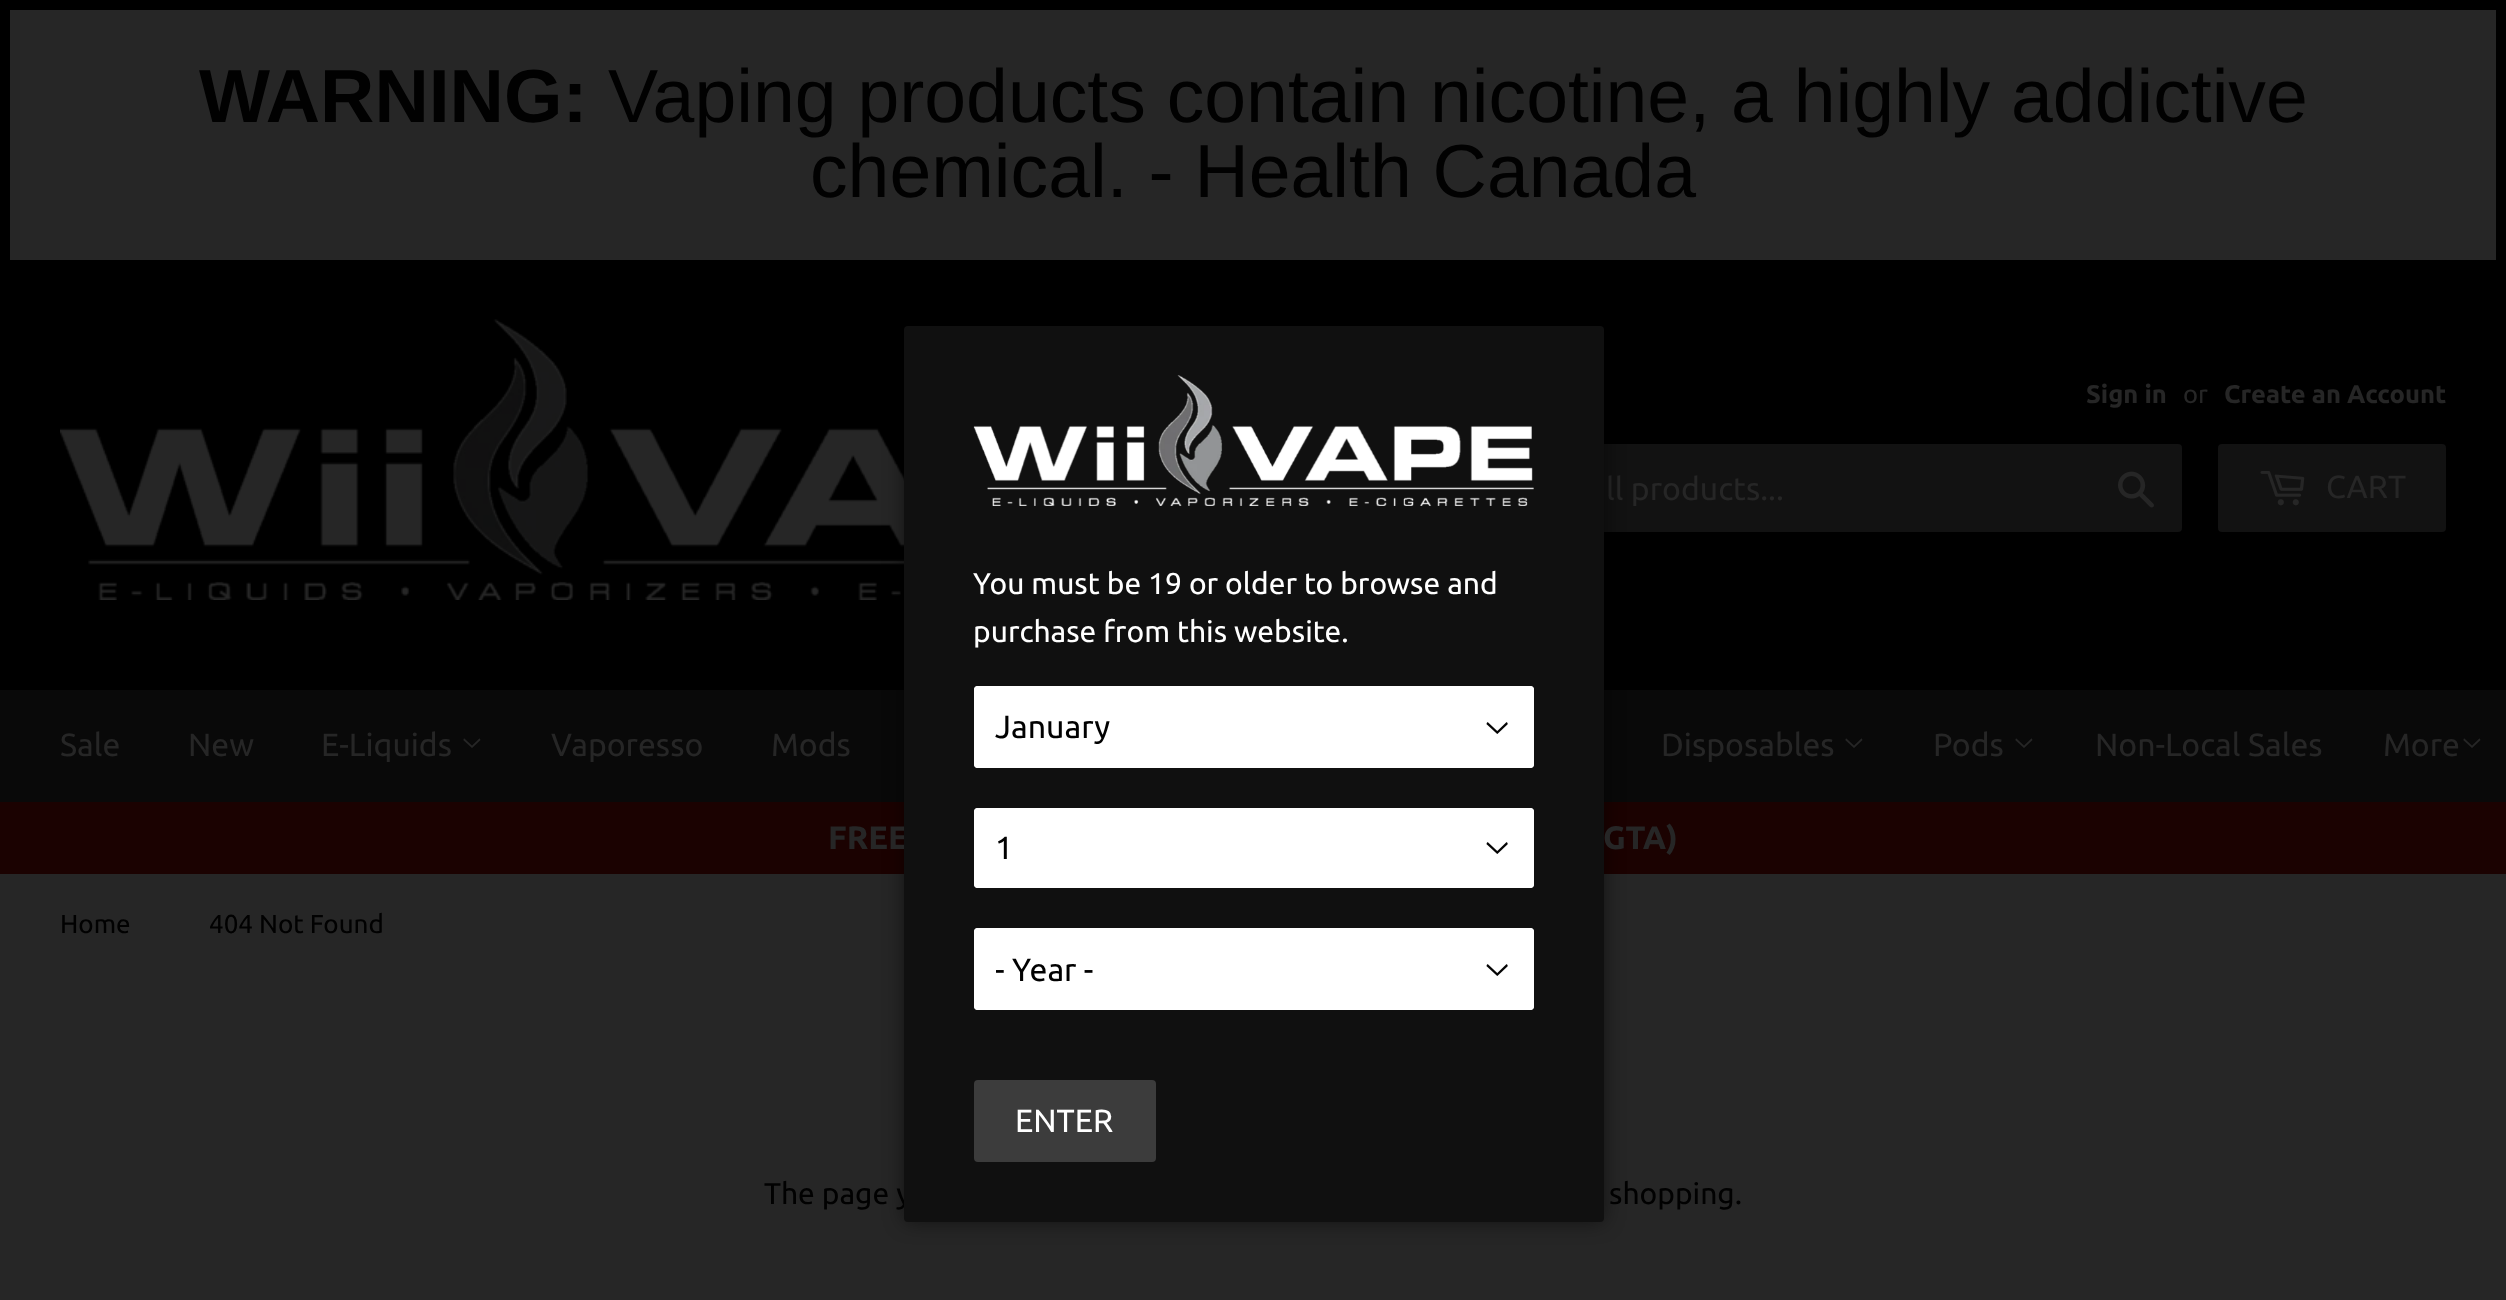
async function draw(canvas) {
  canvas.width = 2506;
  canvas.height = 1300;
  const ctx = canvas.getContext('2d');
  ctx.miterLimit = 4;
  ctx.fontKerning = 'normal';
  function label(s, x, y, font, color) {
    ctx.font = font;
    ctx.fillStyle = color;
    ctx.fillText(s, x, y);
  }
  function rect(x, y, w, h, color) {
    ctx.fillStyle = color;
    ctx.fillRect(x, y, w, h);
  }
  function roundedRect(x, y, w, h, r, color) {
    ctx.fillStyle = color;
    ctx.beginPath();
    ctx.roundRect(x, y, w, h, r);
    ctx.fill();
  }
  async function image(src, x, y, w, h) {
    const img = new Image();
    img.src = src;
    await img.decode();
    ctx.drawImage(img, x, y, w, h);
  }

  rect(0, 0, 2506, 1300, '#262626');
  rect(0, 270, 2506, 420, '#000');
  ctx.strokeStyle = '#000';
  ctx.lineWidth = 10;
  ctx.strokeRect(5, 5, 2496, 260);
  label('WARNING:', 199, 122, 'bold 75.2px Liberation Sans', '#010101');
  label('Vaping products contain nicotine, a highly addictive', 608, 122, '75.2px Liberation Sans', '#010101');
  label('chemical. - Health Canada', 810, 197, '75.2px Liberation Sans', '#010101');
  await image('assets/img1.png', 60, 319, 844, 281);
  label('Sign in', 2086, 403, 'bold 25.5px Ubuntu', '#262626');
  label('or', 2183, 403, '25.5px Ubuntu', '#262626');
  label('Create an Account', 2224, 403, 'bold 25.5px Ubuntu', '#262626');
  roundedRect(1466, 444, 716, 88, 4, '#121212');
  label('ll products...', 1606, 500, '32px Ubuntu', '#262626');
  await image('assets/img2.png', 2118, 471, 36, 37);
  roundedRect(2218, 444, 228, 88, 4, '#121212');
  await image('assets/img3.png', 2260, 471, 45, 35);
  label('CART', 2326, 498, '32px Ubuntu', '#262626');
  rect(0, 690, 2506, 112, '#090909');
  rect(0, 802, 2506, 72, '#1b0201');
  ctx.fillStyle = '#00000080';
  ctx.filter = 'blur(10px)';
  ctx.beginPath();
  ctx.roundRect(904, 326, 700, 896, 4);
  ctx.fill();
  ctx.filter = 'none';
  label('FREE', 828, 849, 'bold 32.5px Ubuntu', '#262626');
  label('The page y', 764, 1204, '30px Ubuntu', '#010101');
  roundedRect(904, 326, 700, 896, 4, '#101010');
  await image('assets/img4.png', 973, 375, 561, 131);
  label('You must be 19 or older to browse and', 973, 594, '30px Ubuntu', '#fff');
  label('purchase from this website.', 973, 642, '30px Ubuntu', '#fff');
  roundedRect(974, 686, 560, 82, 4, '#fff');
  await image('assets/img5.png', 1486, 722, 22, 12);
  ctx.beginPath();
  ctx.roundRect(975, 687, 558, 80, 3);
  ctx.strokeStyle = '#fff';
  ctx.lineWidth = 2;
  ctx.stroke();
  label('January', 995, 738, '32px Ubuntu', '#010101');
  roundedRect(974, 808, 560, 80, 4, '#fff');
  await image('assets/img5.png', 1486, 842, 22, 12);
  ctx.beginPath();
  ctx.roundRect(975, 809, 558, 78, 3);
  ctx.stroke();
  label('1', 995, 859, '32px Ubuntu', '#010101');
  roundedRect(974, 928, 560, 82, 4, '#fff');
  await image('assets/img5.png', 1486, 964, 22, 12);
  ctx.beginPath();
  ctx.roundRect(975, 929, 558, 80, 3);
  ctx.stroke();
  ctx.save();
  ctx.beginPath();
  ctx.rect(996, 946, 480, 46);
  ctx.clip();
  label('- Year -', 995, 981, '32px Ubuntu', '#010101');
  ctx.restore();
  roundedRect(974, 1080, 182, 82, 4, '#3c3c3c');
  label('ENTER', 1015, 1132, '32px Ubuntu', '#fff');
  label('Sale', 60, 756, '32px Ubuntu', '#262626');
  label('New', 188, 756, '32px Ubuntu', '#262626');
  label('E-Liquids', 321, 756, '32px Ubuntu', '#262626');
  await image('assets/img6.png', 463, 738, 18, 10);
  label('Vaporesso', 551, 756, '32px Ubuntu', '#262626');
  label('Mods', 771, 756, '32px Ubuntu', '#262626');
  label('Disposables', 1661, 756, '32px Ubuntu', '#262626');
  await image('assets/img6.png', 1845, 738, 18, 10);
  label('Pods', 1933, 756, '32px Ubuntu', '#262626');
  await image('assets/img6.png', 2015, 738, 18, 10);
  label('Non-Local Sales', 2095, 756, '32px Ubuntu', '#262626');
  label('More', 2383, 756, '32px Ubuntu', '#262626');
  await image('assets/img6.png', 2463, 738, 18, 10);
  label('GTA)', 1603, 849, 'bold 32.5px Ubuntu', '#262626');
  label('Home', 60, 933, '26px Ubuntu', '#010101');
  label('404 Not Found', 209, 933, '26px Ubuntu', '#010101');
  label('shopping.', 1609, 1204, '30px Ubuntu', '#010101');
}

draw(document.querySelector('canvas'));
